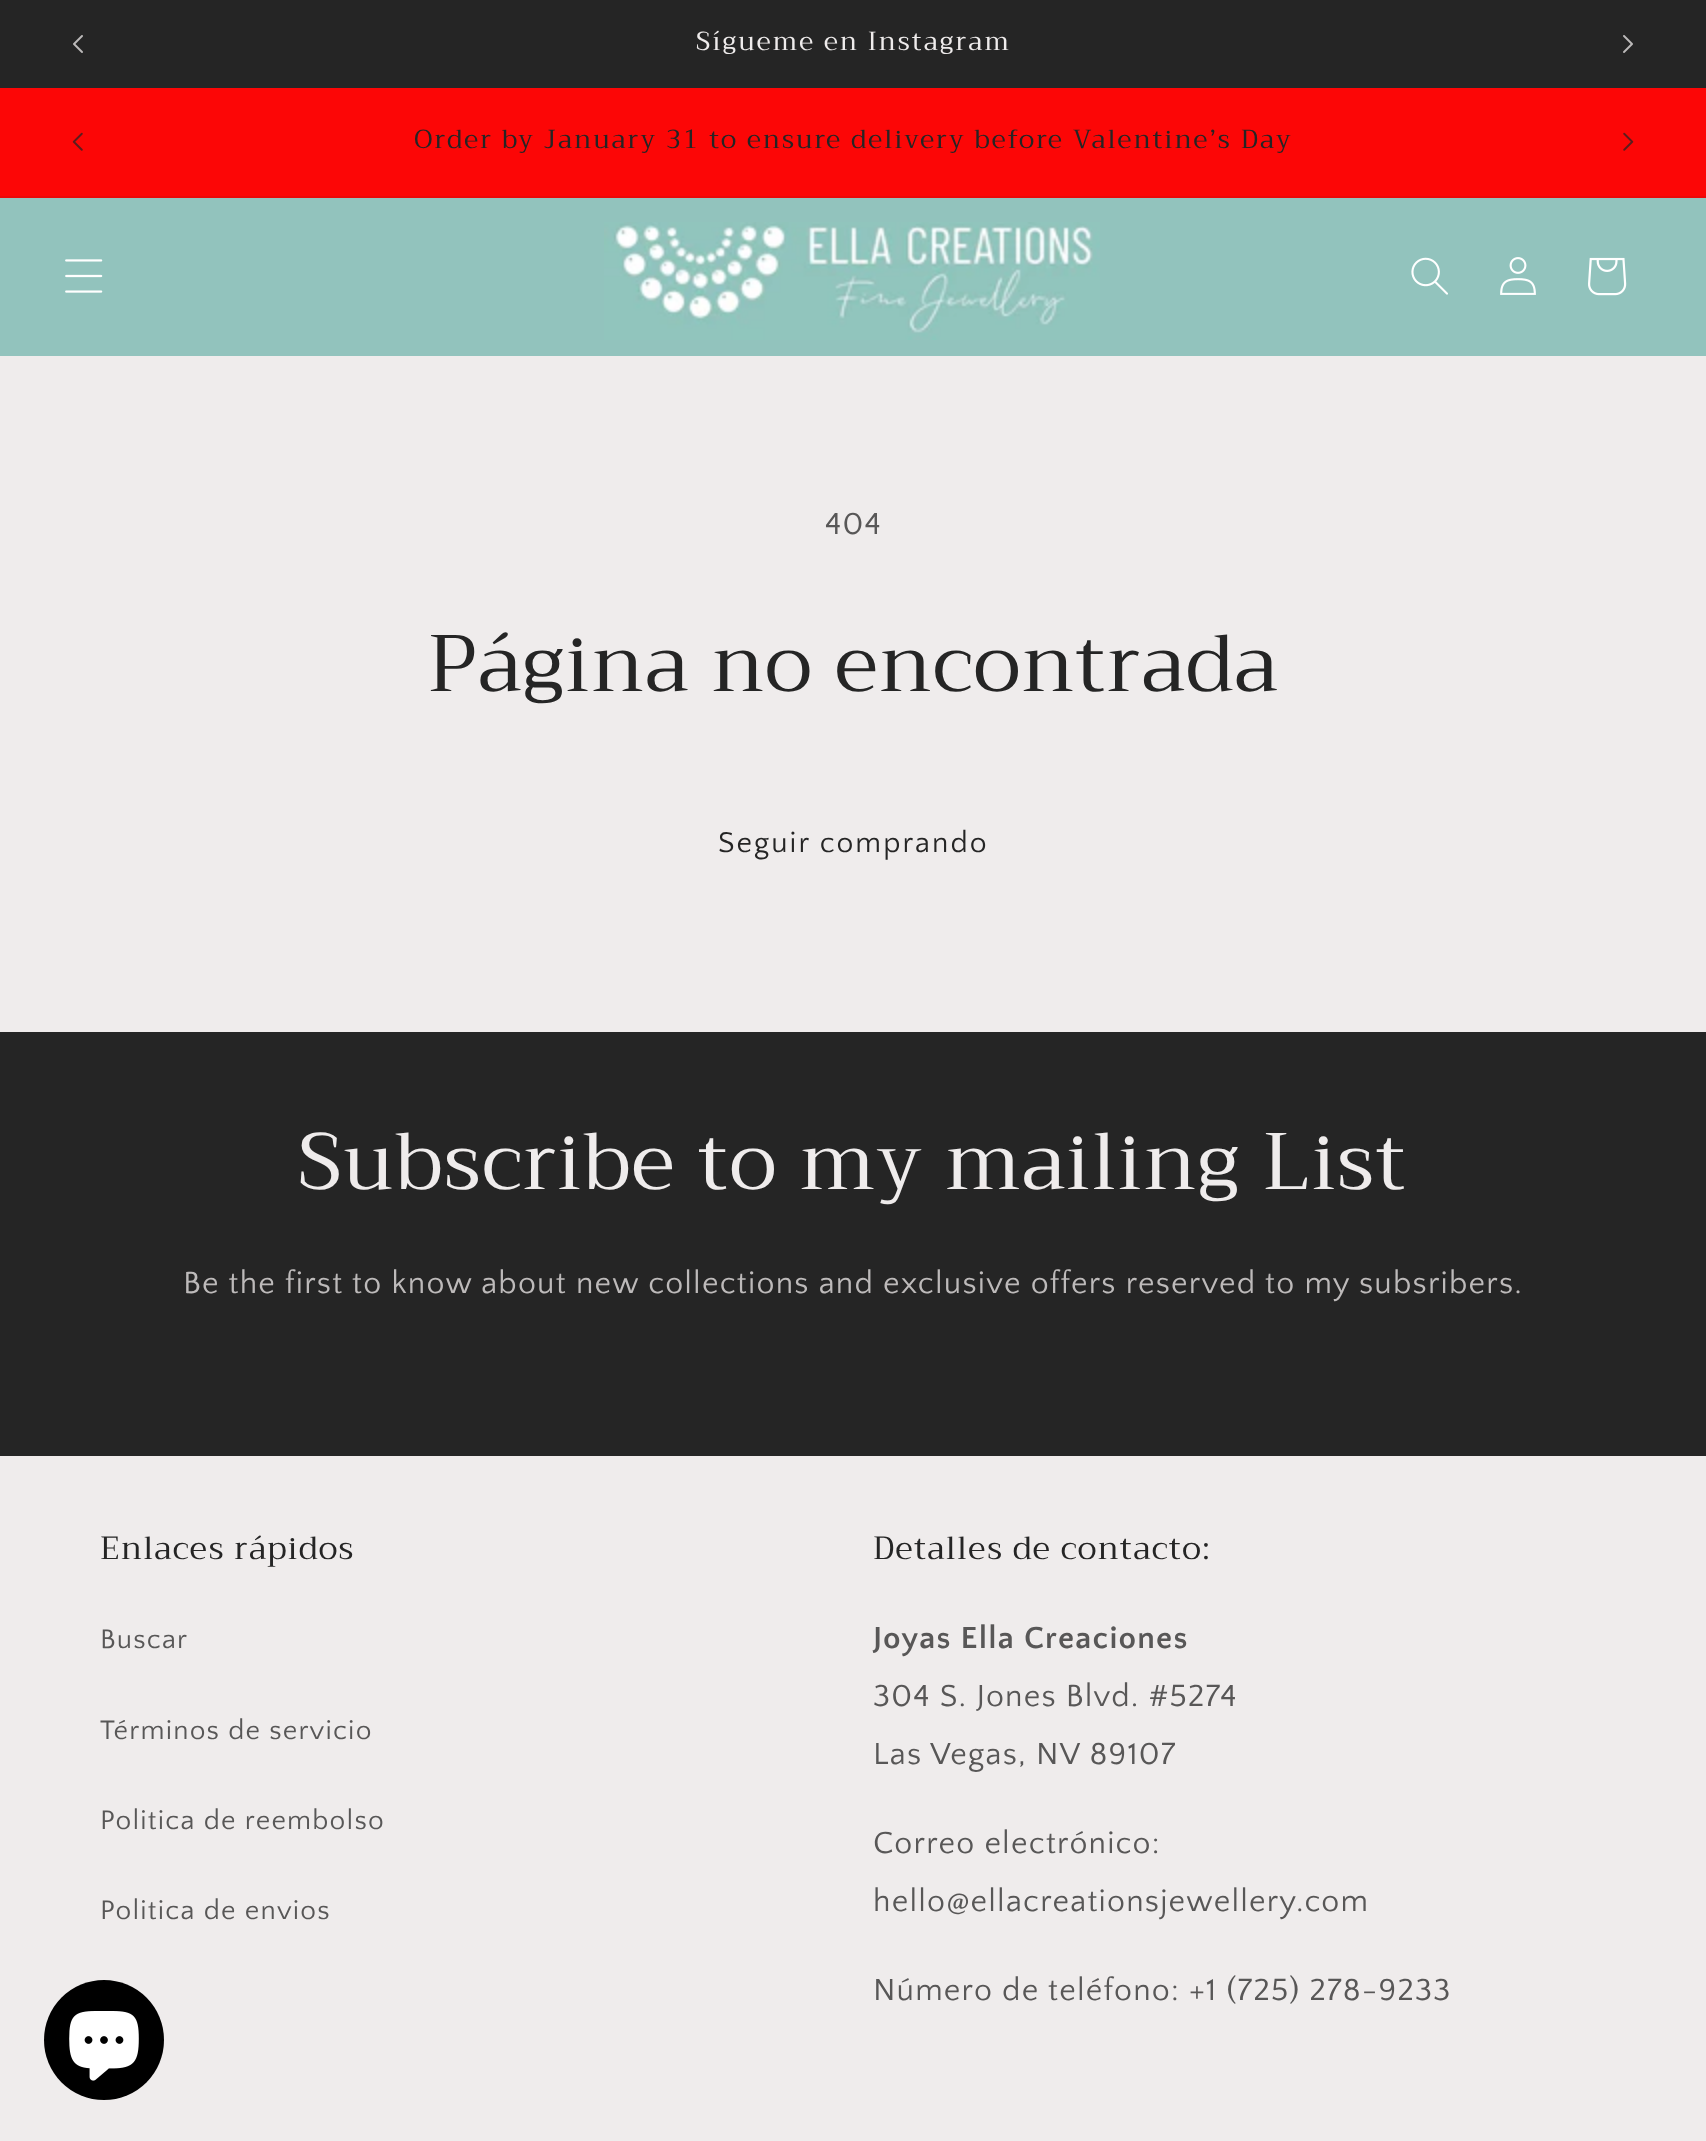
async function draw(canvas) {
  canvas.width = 1706;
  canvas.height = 2141;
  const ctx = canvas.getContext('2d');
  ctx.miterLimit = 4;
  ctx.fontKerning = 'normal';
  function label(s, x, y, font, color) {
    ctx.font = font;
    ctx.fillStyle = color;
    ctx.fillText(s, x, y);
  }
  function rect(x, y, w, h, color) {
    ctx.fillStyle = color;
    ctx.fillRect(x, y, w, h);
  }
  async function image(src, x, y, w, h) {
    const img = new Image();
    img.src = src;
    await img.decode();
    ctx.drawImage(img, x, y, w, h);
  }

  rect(0, 0, 1706, 2141, '#efecec');
  rect(0, 0, 1706, 88, '#252525');
  await image('assets/img1.png', 73, 35, 10, 18);
  ctx.letterSpacing = '2px';
  label('Sígueme en Instagram', 696, 50, '26px Trirong', '#efecec');
  await image('assets/img2.png', 1623, 35, 10, 18);
  rect(0, 88, 1706, 108, '#fc0606');
  rect(0, 196, 1706, 2, '#eb0808');
  await image('assets/img3.png', 72, 132, 11, 19);
  label('Order by January 31 to ensure delivery before Valentine’s Day', 414, 148, '26px Trirong', '#252525');
  await image('assets/img4.png', 1623, 132, 11, 19);
  rect(0, 198, 1706, 158, '#92c3bd');
  await image('assets/img5.png', 65, 259, 38, 34);
  await image('assets/img6.png', 604, 222, 496, 118);
  await image('assets/img7.png', 1411, 257, 37, 38);
  await image('assets/img8.png', 1500, 257, 36, 38);
  await image('assets/img9.png', 1588, 257, 39, 39);
  ctx.letterSpacing = '1.2px';
  label('404', 825, 534, '32px Quattrocento Sans', '#585757');
  label('Página no encontrada', 428, 691, '80px Trirong', '#252525');
  ctx.letterSpacing = '2px';
  label('Seguir comprando', 718, 852, '30px Quattrocento Sans', '#252525');
  rect(0, 1032, 1706, 424, '#252525');
  ctx.letterSpacing = '1.2px';
  label('Subscribe to my mailing List', 298, 1189, '80px Trirong', '#efecec');
  label('Be the first to know about new collections and exclusive offers reserved to my subsribers.', 183, 1293, '32px Quattrocento Sans', '#bdbaba');
  label('Enlaces rápidos', 100, 1559, '32px Trirong', '#252525');
  label('Buscar', 100, 1648, '28px Quattrocento Sans', '#585757');
  label('Términos de servicio', 100, 1739, '28px Quattrocento Sans', '#585757');
  label('Politica de reembolso', 100, 1829, '28px Quattrocento Sans', '#585757');
  label('Politica de envios', 100, 1919, '28px Quattrocento Sans', '#585757');
  label('Detalles de contacto:', 873, 1559, '32px Trirong', '#252525');
  label('Joyas Ella Creaciones', 873, 1648, 'bold 32px Quattrocento Sans', '#585757');
  label('304 S. Jones Blvd. #5274', 873, 1706, '32px Quattrocento Sans', '#585757');
  label('Las Vegas, NV 89107', 873, 1764, '32px Quattrocento Sans', '#585757');
  label('Correo electrónico:', 873, 1853, '32px Quattrocento Sans', '#585757');
  label('hello@ellacreationsjewellery.com', 873, 1911, '32px Quattrocento Sans', '#585757');
  label('Número de teléfono: +1 (725) 278-9233', 873, 2000, '32px Quattrocento Sans', '#585757');
  ctx.fillStyle = '#000';
  ctx.beginPath();
  ctx.arc(104, 2040, 60, 0, 2 * Math.PI);
  ctx.fill();
  await image('assets/img10.png', 69, 2011, 70, 70);
}

draw(document.querySelector('canvas'));
